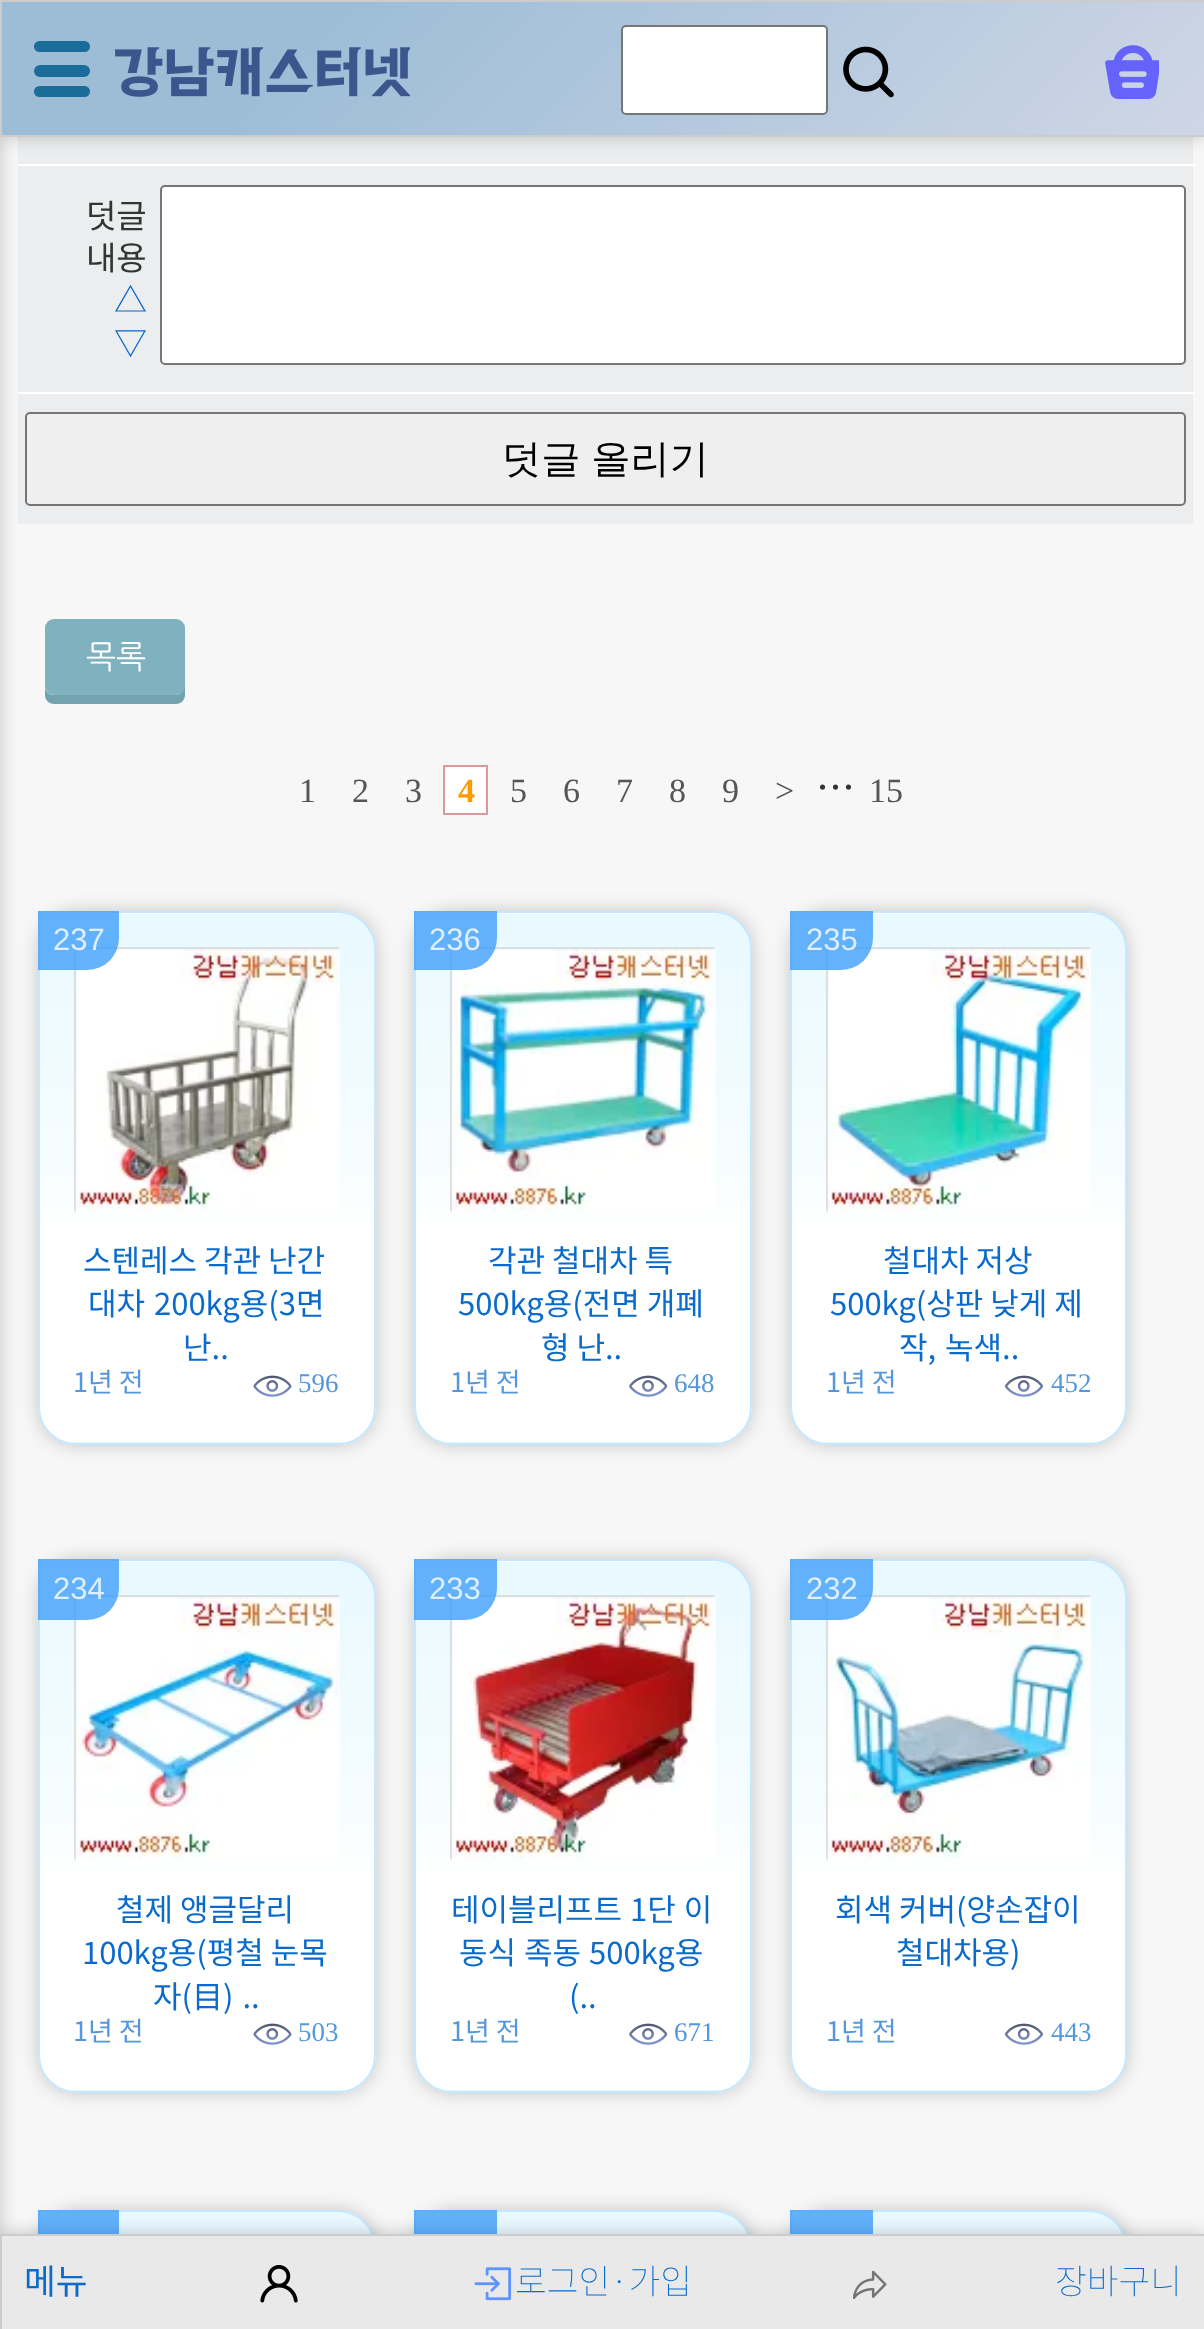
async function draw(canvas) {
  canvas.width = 1204;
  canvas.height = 2329;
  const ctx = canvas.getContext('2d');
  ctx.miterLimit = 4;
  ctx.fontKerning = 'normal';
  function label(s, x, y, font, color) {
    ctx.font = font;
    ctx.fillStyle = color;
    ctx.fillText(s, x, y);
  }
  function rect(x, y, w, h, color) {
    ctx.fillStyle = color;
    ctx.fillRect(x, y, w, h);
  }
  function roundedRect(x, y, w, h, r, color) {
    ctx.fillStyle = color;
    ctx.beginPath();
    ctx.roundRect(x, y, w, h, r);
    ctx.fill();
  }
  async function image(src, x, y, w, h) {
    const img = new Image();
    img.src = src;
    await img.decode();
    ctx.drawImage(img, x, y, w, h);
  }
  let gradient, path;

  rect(0, 0, 1204, 2329, '#f7f7f7');
  rect(18, 137, 1175, 27, '#ecedee');
  rect(18, 164, 1177, 2, '#fff');
  rect(18, 166, 1175, 226, '#ecedee');
  rect(18, 394, 1175, 130, '#ecedee');
  rect(18, 392, 1177, 2, '#fff');
  ctx.fillStyle = '#efefef';
  ctx.beginPath();
  ctx.roundRect(26, 413, 1159, 92, 4);
  ctx.fill();
  ctx.strokeStyle = '#767676';
  ctx.lineWidth = 2;
  ctx.stroke();
  ctx.fillStyle = '#00000033';
  ctx.filter = 'blur(9px)';
  ctx.beginPath();
  ctx.rect(-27, 0, 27, 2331);
  ctx.fill();
  ctx.filter = 'none';
  ctx.filter = 'blur(9px)';
  ctx.beginPath();
  ctx.rect(0, 0, 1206, 137);
  ctx.fill();
  ctx.filter = 'none';
  gradient = ctx.createLinearGradient(937, 402, 269, -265);
  gradient.addColorStop(0, '#cfd6e6');
  gradient.addColorStop(0.74, '#9dbdd7');
  ctx.fillStyle = gradient;
  ctx.fillRect(2, 2, 1202, 133);
  ctx.strokeStyle = '#ccc';
  ctx.strokeRect(1, 1, 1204, 135);
  roundedRect(34, 41, 56, 11, 5.5, '#1a6c99');
  roundedRect(34, 65, 56, 12, 6, '#1a6c99');
  roundedRect(34, 86, 56, 11, 5.5, '#1a6c99');
  await image('assets/img1.png', 115, 47, 295, 50);
  ctx.fillStyle = '#fff';
  ctx.beginPath();
  ctx.roundRect(622, 26, 205, 88, 4);
  ctx.fill();
  ctx.strokeStyle = '#767676';
  ctx.stroke();
  await image('assets/img2.png', 843, 46, 51, 52);
  await image('assets/img3.png', 1105, 45, 54, 54);
  ctx.beginPath();
  ctx.roundRect(161, 186, 1024, 178, 4);
  ctx.fill();
  ctx.stroke();
  label('덧글', 86, 228, '33px Noto Sans KR', '#333533');
  label('내용', 86, 270, '33px Noto Sans KR', '#333533');
  label('△', 114, 312, '33px Noto Sans KR', '#0a6bcc');
  label('▽', 114, 355, '33px Noto Sans KR', '#0a6bcc');
  ctx.wordSpacing = '-1px';
  label('덧글 올리기', 502, 472, '500 39.25px WenQuanYi Zen Hei', '#000');
  ctx.fillStyle = '#74a3b0';
  path = new Path2D('M45 686V695C45 700 49 704 54 704H176C181 704 185 700 185 695V637L184 634V686C184 691 180 695 176 695H54C49 695 45 691 45 686Z');
  ctx.fill(path);
  roundedRect(45, 619, 140, 76, 9, '#7fb1bf');
  ctx.wordSpacing = '0px';
  label('목록', 86, 668, '32px NanumGothic', '#fff');
  label('1', 299, 802, '34px Liberation Serif', '#555');
  label('2', 352, 802, '34px Liberation Serif', '#555');
  label('3', 405, 802, '34px Liberation Serif', '#555');
  ctx.fillStyle = '#fff';
  ctx.beginPath();
  ctx.rect(444, 766, 43, 48);
  ctx.fill();
  ctx.strokeStyle = '#d99';
  ctx.stroke();
  label('4', 458, 802, 'bold 34px Liberation Serif', '#f90');
  label('5', 510, 802, '34px Liberation Serif', '#555');
  label('6', 563, 802, '34px Liberation Serif', '#555');
  label('7', 616, 802, '34px Liberation Serif', '#555');
  label('8', 669, 802, '34px Liberation Serif', '#555');
  label('9', 722, 802, '34px Liberation Serif', '#555');
  label('>', 775, 802, '34px Liberation Serif', '#555');
  label('…', 816, 802, '39px Noto Sans KR', '#333533');
  label('15', 869, 802, '34px Liberation Serif', '#555');
  ctx.fillStyle = '#00000033';
  ctx.filter = 'blur(9px)';
  ctx.beginPath();
  ctx.roundRect(38, 911, 338, 534, 38);
  ctx.fill();
  ctx.filter = 'none';
  ctx.save();
  ctx.beginPath();
  ctx.roundRect(38, 911, 338, 534, [0, 38, 38, 38]);
  ctx.clip();
  gradient = ctx.createLinearGradient(207, 914, 207, 385);
  gradient.addColorStop(0, '#fff');
  gradient.addColorStop(0.4, '#fff');
  gradient.addColorStop(0.51, '#f7fdff');
  gradient.addColorStop(1, '#e8f9ff');
  ctx.fillStyle = gradient;
  ctx.fillRect(38, 911, 315, 3);
  gradient = ctx.createLinearGradient(207, 1442, 207, 914);
  gradient.addColorStop(0, '#fff');
  gradient.addColorStop(0.4, '#fff');
  gradient.addColorStop(0.51, '#f7fdff');
  gradient.addColorStop(1, '#e8f9ff');
  ctx.fillStyle = gradient;
  ctx.fillRect(38, 914, 338, 528);
  gradient = ctx.createLinearGradient(207, 1971, 207, 1442);
  gradient.addColorStop(0, '#fff');
  gradient.addColorStop(0.4, '#fff');
  gradient.addColorStop(0.51, '#f7fdff');
  gradient.addColorStop(1, '#e8f9ff');
  ctx.fillStyle = gradient;
  ctx.fillRect(61, 1442, 292, 3);
  ctx.restore();
  ctx.beginPath();
  ctx.roundRect(39, 912, 336, 532, [0, 37, 37, 37]);
  ctx.strokeStyle = '#c4e8fd';
  ctx.stroke();
  ctx.fillStyle = '#d7dfe1';
  path = new Path2D('M74 947H340L338 950H76Z');
  ctx.fill(path);
  ctx.fillStyle = '#c4c3c380';
  path = new Path2D('M74 1213V947L76 950V1210Z');
  ctx.fill(path);
  await image('assets/img4.png', 76, 949, 262, 262);
  ctx.fillStyle = '#3e9ffccc';
  ctx.beginPath();
  ctx.roundRect(38, 911, 81, 59, [0, 0, 32, 0]);
  ctx.fill();
  label('237', 53, 950, '31px Liberation Sans', '#dfeffe');
  ctx.fillStyle = '#ffffffb3';
  path = new Path2D('M340 947V1213L338 1210V950Z');
  ctx.fill(path);
  label('스텐레스 각관 난간', 83, 1272, '31px Noto Sans KR', '#0a6bcc');
  ctx.wordSpacing = '2px';
  label('대차 200kg용(3면', 88, 1315, '31px Noto Sans KR', '#0a6bcc');
  ctx.wordSpacing = '0px';
  label('난..', 183, 1359, '31px Noto Sans KR', '#0a6bcc');
  label('1년 전', 73, 1392, '27px Noto Sans KR', '#5497db');
  await image('assets/img5.png', 253, 1375, 39, 22);
  label('596', 298, 1392, '27px Liberation Serif', '#5497db');
  ctx.fillStyle = '#00000033';
  ctx.filter = 'blur(9px)';
  ctx.beginPath();
  ctx.roundRect(414, 911, 338, 534, 38);
  ctx.fill();
  ctx.filter = 'none';
  ctx.save();
  ctx.beginPath();
  ctx.roundRect(414, 911, 338, 534, [0, 38, 38, 38]);
  ctx.clip();
  gradient = ctx.createLinearGradient(583, 914, 583, 385);
  gradient.addColorStop(0, '#fff');
  gradient.addColorStop(0.4, '#fff');
  gradient.addColorStop(0.51, '#f7fdff');
  gradient.addColorStop(1, '#e8f9ff');
  ctx.fillStyle = gradient;
  ctx.fillRect(414, 911, 315, 3);
  gradient = ctx.createLinearGradient(583, 1442, 583, 914);
  gradient.addColorStop(0, '#fff');
  gradient.addColorStop(0.4, '#fff');
  gradient.addColorStop(0.51, '#f7fdff');
  gradient.addColorStop(1, '#e8f9ff');
  ctx.fillStyle = gradient;
  ctx.fillRect(414, 914, 338, 528);
  gradient = ctx.createLinearGradient(583, 1971, 583, 1442);
  gradient.addColorStop(0, '#fff');
  gradient.addColorStop(0.4, '#fff');
  gradient.addColorStop(0.51, '#f7fdff');
  gradient.addColorStop(1, '#e8f9ff');
  ctx.fillStyle = gradient;
  ctx.fillRect(437, 1442, 292, 3);
  ctx.restore();
  ctx.beginPath();
  ctx.roundRect(415, 912, 336, 532, [0, 37, 37, 37]);
  ctx.stroke();
  ctx.fillStyle = '#d7dfe1';
  path = new Path2D('M450 947H716L713 950H452Z');
  ctx.fill(path);
  ctx.fillStyle = '#c4c3c380';
  path = new Path2D('M450 1213V947L452 950V1210Z');
  ctx.fill(path);
  await image('assets/img6.png', 452, 949, 261, 262);
  ctx.fillStyle = '#3e9ffccc';
  ctx.beginPath();
  ctx.roundRect(414, 911, 83, 59, [0, 0, 32, 0]);
  ctx.fill();
  label('236', 429, 950, '31px Liberation Sans', '#dfeffe');
  ctx.fillStyle = '#ffffffb3';
  path = new Path2D('M716 947V1213L713 1210V950Z');
  ctx.fill(path);
  label('각관 철대차 특', 488, 1272, '31px Noto Sans KR', '#0a6bcc');
  label('500kg용(전면 개폐', 458, 1315, '31px Noto Sans KR', '#0a6bcc');
  label('형 난..', 541, 1359, '31px Noto Sans KR', '#0a6bcc');
  label('1년 전', 450, 1392, '27px Noto Sans KR', '#5497db');
  await image('assets/img7.png', 629, 1375, 39, 22);
  label('648', 674, 1392, '27px Liberation Serif', '#5497db');
  ctx.fillStyle = '#00000033';
  ctx.filter = 'blur(9px)';
  ctx.beginPath();
  ctx.roundRect(790, 911, 337, 534, 38);
  ctx.fill();
  ctx.filter = 'none';
  ctx.save();
  ctx.beginPath();
  ctx.roundRect(790, 911, 337, 534, [0, 38, 38, 38]);
  ctx.clip();
  gradient = ctx.createLinearGradient(959, 914, 959, 385);
  gradient.addColorStop(0, '#fff');
  gradient.addColorStop(0.4, '#fff');
  gradient.addColorStop(0.51, '#f7fdff');
  gradient.addColorStop(1, '#e8f9ff');
  ctx.fillStyle = gradient;
  ctx.fillRect(790, 911, 314, 3);
  gradient = ctx.createLinearGradient(959, 1442, 959, 914);
  gradient.addColorStop(0, '#fff');
  gradient.addColorStop(0.4, '#fff');
  gradient.addColorStop(0.51, '#f7fdff');
  gradient.addColorStop(1, '#e8f9ff');
  ctx.fillStyle = gradient;
  ctx.fillRect(790, 914, 337, 528);
  gradient = ctx.createLinearGradient(959, 1971, 959, 1442);
  gradient.addColorStop(0, '#fff');
  gradient.addColorStop(0.4, '#fff');
  gradient.addColorStop(0.51, '#f7fdff');
  gradient.addColorStop(1, '#e8f9ff');
  ctx.fillStyle = gradient;
  ctx.fillRect(813, 1442, 291, 3);
  ctx.restore();
  ctx.beginPath();
  ctx.roundRect(791, 912, 335, 532, [0, 37, 37, 37]);
  ctx.stroke();
  ctx.fillStyle = '#d7dfe1';
  path = new Path2D('M826 947H1091L1089 950H828Z');
  ctx.fill(path);
  ctx.fillStyle = '#c4c3c380';
  path = new Path2D('M826 1213V947L828 950V1210Z');
  ctx.fill(path);
  await image('assets/img8.png', 828, 949, 261, 262);
  ctx.fillStyle = '#3e9ffccc';
  ctx.beginPath();
  ctx.roundRect(790, 911, 83, 59, [0, 0, 32, 0]);
  ctx.fill();
  label('235', 806, 950, '31px Liberation Sans', '#dfeffe');
  ctx.fillStyle = '#ffffffb3';
  path = new Path2D('M1091 947V1213L1089 1210V950Z');
  ctx.fill(path);
  label('철대차 저상', 883, 1272, '31px Noto Sans KR', '#0a6bcc');
  label('500kg(상판 낮게 제', 830, 1315, '31px Noto Sans KR', '#0a6bcc');
  ctx.wordSpacing = '2px';
  label('작, 녹색..', 899, 1359, '31px Noto Sans KR', '#0a6bcc');
  ctx.wordSpacing = '0px';
  label('1년 전', 826, 1392, '27px Noto Sans KR', '#5497db');
  await image('assets/img9.png', 1005, 1375, 38, 22);
  label('452', 1051, 1392, '27px Liberation Serif', '#5497db');
  ctx.fillStyle = '#00000033';
  ctx.filter = 'blur(9px)';
  ctx.beginPath();
  ctx.roundRect(38, 1559, 338, 534, 38);
  ctx.fill();
  ctx.filter = 'none';
  ctx.save();
  ctx.beginPath();
  ctx.roundRect(38, 1559, 338, 534, [0, 38, 38, 38]);
  ctx.clip();
  gradient = ctx.createLinearGradient(207, 1562, 207, 1033);
  gradient.addColorStop(0, '#fff');
  gradient.addColorStop(0.4, '#fff');
  gradient.addColorStop(0.51, '#f7fdff');
  gradient.addColorStop(1, '#e8f9ff');
  ctx.fillStyle = gradient;
  ctx.fillRect(38, 1559, 315, 3);
  gradient = ctx.createLinearGradient(207, 2090, 207, 1562);
  gradient.addColorStop(0, '#fff');
  gradient.addColorStop(0.4, '#fff');
  gradient.addColorStop(0.51, '#f7fdff');
  gradient.addColorStop(1, '#e8f9ff');
  ctx.fillStyle = gradient;
  ctx.fillRect(38, 1562, 338, 528);
  gradient = ctx.createLinearGradient(207, 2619, 207, 2090);
  gradient.addColorStop(0, '#fff');
  gradient.addColorStop(0.4, '#fff');
  gradient.addColorStop(0.51, '#f7fdff');
  gradient.addColorStop(1, '#e8f9ff');
  ctx.fillStyle = gradient;
  ctx.fillRect(61, 2090, 292, 3);
  ctx.restore();
  ctx.beginPath();
  ctx.roundRect(39, 1560, 336, 532, [0, 37, 37, 37]);
  ctx.stroke();
  ctx.fillStyle = '#d7dfe1';
  path = new Path2D('M74 1595H340L338 1598H76Z');
  ctx.fill(path);
  ctx.fillStyle = '#c4c3c380';
  path = new Path2D('M74 1861V1595L76 1598V1858Z');
  ctx.fill(path);
  await image('assets/img10.png', 76, 1597, 262, 262);
  ctx.fillStyle = '#3e9ffccc';
  ctx.beginPath();
  ctx.roundRect(38, 1559, 81, 61, [0, 0, 32, 0]);
  ctx.fill();
  label('234', 53, 1599, '31px Liberation Sans', '#dfeffe');
  ctx.fillStyle = '#ffffffb3';
  path = new Path2D('M340 1595V1861L338 1858V1598Z');
  ctx.fill(path);
  label('철제 앵글달리', 116, 1921, '31px Noto Sans KR', '#0a6bcc');
  label('100kg용(평철 눈목', 82, 1964, '31px Noto Sans KR', '#0a6bcc');
  ctx.wordSpacing = '2px';
  label('자(目) ..', 153, 2008, '31px Noto Sans KR', '#0a6bcc');
  ctx.wordSpacing = '0px';
  label('1년 전', 73, 2041, '27px Noto Sans KR', '#5497db');
  await image('assets/img5.png', 253, 2023, 39, 22);
  label('503', 298, 2041, '27px Liberation Serif', '#5497db');
  ctx.fillStyle = '#00000033';
  ctx.filter = 'blur(9px)';
  ctx.beginPath();
  ctx.roundRect(414, 1559, 338, 534, 38);
  ctx.fill();
  ctx.filter = 'none';
  ctx.save();
  ctx.beginPath();
  ctx.roundRect(414, 1559, 338, 534, [0, 38, 38, 38]);
  ctx.clip();
  gradient = ctx.createLinearGradient(583, 1562, 583, 1033);
  gradient.addColorStop(0, '#fff');
  gradient.addColorStop(0.4, '#fff');
  gradient.addColorStop(0.51, '#f7fdff');
  gradient.addColorStop(1, '#e8f9ff');
  ctx.fillStyle = gradient;
  ctx.fillRect(414, 1559, 315, 3);
  gradient = ctx.createLinearGradient(583, 2090, 583, 1562);
  gradient.addColorStop(0, '#fff');
  gradient.addColorStop(0.4, '#fff');
  gradient.addColorStop(0.51, '#f7fdff');
  gradient.addColorStop(1, '#e8f9ff');
  ctx.fillStyle = gradient;
  ctx.fillRect(414, 1562, 338, 528);
  gradient = ctx.createLinearGradient(583, 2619, 583, 2090);
  gradient.addColorStop(0, '#fff');
  gradient.addColorStop(0.4, '#fff');
  gradient.addColorStop(0.51, '#f7fdff');
  gradient.addColorStop(1, '#e8f9ff');
  ctx.fillStyle = gradient;
  ctx.fillRect(437, 2090, 292, 3);
  ctx.restore();
  ctx.beginPath();
  ctx.roundRect(415, 1560, 336, 532, [0, 37, 37, 37]);
  ctx.stroke();
  ctx.fillStyle = '#d7dfe1';
  path = new Path2D('M450 1595H716L713 1598H452Z');
  ctx.fill(path);
  ctx.fillStyle = '#c4c3c380';
  path = new Path2D('M450 1861V1595L452 1598V1858Z');
  ctx.fill(path);
  await image('assets/img11.png', 452, 1597, 261, 262);
  ctx.fillStyle = '#3e9ffccc';
  ctx.beginPath();
  ctx.roundRect(414, 1559, 83, 61, [0, 0, 32, 0]);
  ctx.fill();
  label('233', 429, 1599, '31px Liberation Sans', '#dfeffe');
  ctx.fillStyle = '#ffffffb3';
  path = new Path2D('M716 1595V1861L713 1858V1598Z');
  ctx.fill(path);
  ctx.wordSpacing = '1px';
  label('테이블리프트 1단 이', 451, 1921, '31px Noto Sans KR', '#0a6bcc');
  label('동식 족동 500kg용', 459, 1964, '31px Noto Sans KR', '#0a6bcc');
  ctx.wordSpacing = '0px';
  label('(..', 569, 2008, '31px Noto Sans KR', '#0a6bcc');
  label('1년 전', 450, 2041, '27px Noto Sans KR', '#5497db');
  await image('assets/img7.png', 629, 2023, 39, 22);
  label('671', 674, 2041, '27px Liberation Serif', '#5497db');
  ctx.fillStyle = '#00000033';
  ctx.filter = 'blur(9px)';
  ctx.beginPath();
  ctx.roundRect(790, 1559, 337, 534, 38);
  ctx.fill();
  ctx.filter = 'none';
  ctx.save();
  ctx.beginPath();
  ctx.roundRect(790, 1559, 337, 534, [0, 38, 38, 38]);
  ctx.clip();
  gradient = ctx.createLinearGradient(959, 1562, 959, 1033);
  gradient.addColorStop(0, '#fff');
  gradient.addColorStop(0.4, '#fff');
  gradient.addColorStop(0.51, '#f7fdff');
  gradient.addColorStop(1, '#e8f9ff');
  ctx.fillStyle = gradient;
  ctx.fillRect(790, 1559, 314, 3);
  gradient = ctx.createLinearGradient(959, 2090, 959, 1562);
  gradient.addColorStop(0, '#fff');
  gradient.addColorStop(0.4, '#fff');
  gradient.addColorStop(0.51, '#f7fdff');
  gradient.addColorStop(1, '#e8f9ff');
  ctx.fillStyle = gradient;
  ctx.fillRect(790, 1562, 337, 528);
  gradient = ctx.createLinearGradient(959, 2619, 959, 2090);
  gradient.addColorStop(0, '#fff');
  gradient.addColorStop(0.4, '#fff');
  gradient.addColorStop(0.51, '#f7fdff');
  gradient.addColorStop(1, '#e8f9ff');
  ctx.fillStyle = gradient;
  ctx.fillRect(813, 2090, 291, 3);
  ctx.restore();
  ctx.beginPath();
  ctx.roundRect(791, 1560, 335, 532, [0, 37, 37, 37]);
  ctx.stroke();
  ctx.fillStyle = '#d7dfe1';
  path = new Path2D('M826 1595H1091L1089 1598H828Z');
  ctx.fill(path);
  ctx.fillStyle = '#c4c3c380';
  path = new Path2D('M826 1861V1595L828 1598V1858Z');
  ctx.fill(path);
  await image('assets/img12.png', 828, 1597, 261, 262);
  ctx.fillStyle = '#3e9ffccc';
  ctx.beginPath();
  ctx.roundRect(790, 1559, 83, 61, [0, 0, 32, 0]);
  ctx.fill();
  label('232', 806, 1599, '31px Liberation Sans', '#dfeffe');
  ctx.fillStyle = '#ffffffb3';
  path = new Path2D('M1091 1595V1861L1089 1858V1598Z');
  ctx.fill(path);
  label('회색 커버(양손잡이', 835, 1921, '31px Noto Sans KR', '#0a6bcc');
  label('철대차용)', 896, 1964, '31px Noto Sans KR', '#0a6bcc');
  label('1년 전', 826, 2041, '27px Noto Sans KR', '#5497db');
  await image('assets/img9.png', 1005, 2023, 38, 22);
  label('443', 1051, 2041, '27px Liberation Serif', '#5497db');
  ctx.fillStyle = '#00000033';
  ctx.filter = 'blur(9px)';
  ctx.beginPath();
  ctx.roundRect(38, 2210, 338, 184, 38);
  ctx.fill();
  ctx.filter = 'none';
  ctx.save();
  path = new Path2D('M38 2210H338C359 2210 376 2227 376 2248V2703C376 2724 359 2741 338 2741H76C55 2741 38 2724 38 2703Z');
  ctx.clip(path);
  gradient = ctx.createLinearGradient(207, 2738, 207, 2212);
  gradient.addColorStop(0, '#fff');
  gradient.addColorStop(0.4, '#fff');
  gradient.addColorStop(0.51, '#f7fdff');
  gradient.addColorStop(1, '#e8f9ff');
  ctx.fillStyle = gradient;
  ctx.fillRect(40, 2212, 334, 22);
  ctx.restore();
  path = new Path2D('M39 2211H338C358.5 2211 375 2227.5 375 2248V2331C375 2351.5 358.5 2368 338 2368H76C55.5 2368 39 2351.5 39 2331Z');
  ctx.stroke(path);
  rect(38, 2210, 81, 24, '#3e9ffccc');
  ctx.fillStyle = '#00000033';
  ctx.filter = 'blur(9px)';
  ctx.beginPath();
  ctx.roundRect(414, 2210, 338, 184, 38);
  ctx.fill();
  ctx.filter = 'none';
  ctx.save();
  path = new Path2D('M414 2210H714C735 2210 752 2227 752 2248V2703C752 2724 735 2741 714 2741H452C431 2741 414 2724 414 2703Z');
  ctx.clip(path);
  gradient = ctx.createLinearGradient(583, 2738, 583, 2212);
  gradient.addColorStop(0, '#fff');
  gradient.addColorStop(0.4, '#fff');
  gradient.addColorStop(0.51, '#f7fdff');
  gradient.addColorStop(1, '#e8f9ff');
  ctx.fillStyle = gradient;
  ctx.fillRect(416, 2212, 334, 22);
  ctx.restore();
  path = new Path2D('M415 2211H714C734.5 2211 751 2227.5 751 2248V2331C751 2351.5 734.5 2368 714 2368H452C431.5 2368 415 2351.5 415 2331Z');
  ctx.stroke(path);
  rect(414, 2210, 83, 24, '#3e9ffccc');
  ctx.fillStyle = '#00000033';
  ctx.filter = 'blur(9px)';
  ctx.beginPath();
  ctx.roundRect(790, 2210, 337, 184, 38);
  ctx.fill();
  ctx.filter = 'none';
  ctx.save();
  path = new Path2D('M790 2210H1089C1110 2210 1127 2227 1127 2248V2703C1127 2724 1110 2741 1089 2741H828C807 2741 790 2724 790 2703Z');
  ctx.clip(path);
  gradient = ctx.createLinearGradient(959, 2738, 959, 2212);
  gradient.addColorStop(0, '#fff');
  gradient.addColorStop(0.4, '#fff');
  gradient.addColorStop(0.51, '#f7fdff');
  gradient.addColorStop(1, '#e8f9ff');
  ctx.fillStyle = gradient;
  ctx.fillRect(792, 2212, 333, 22);
  ctx.restore();
  path = new Path2D('M791 2211H1089C1109.5 2211 1126 2227.5 1126 2248V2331C1126 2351.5 1109.5 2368 1089 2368H828C807.5 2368 791 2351.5 791 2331Z');
  ctx.stroke(path);
  rect(790, 2210, 83, 24, '#3e9ffccc');
  ctx.fillStyle = '#00000033';
  ctx.filter = 'blur(9px)';
  ctx.beginPath();
  ctx.rect(0, 2234, 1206, 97);
  ctx.fill();
  ctx.filter = 'none';
  ctx.fillStyle = '#e9e9e9';
  ctx.beginPath();
  ctx.rect(1, 2235, 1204, 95);
  ctx.fill();
  ctx.strokeStyle = '#ccc';
  ctx.stroke();
  label('메뉴', 24, 2294, '34.5px Noto Sans KR', '#0a6bcc');
  await image('assets/img13.png', 260, 2265, 38, 38);
  await image('assets/img14.png', 474, 2267, 38, 34);
  label('로그인·가입', 515, 2294, '100 34.5px Noto Sans KR', '#0a6bcc');
  await image('assets/img15.png', 853, 2270, 34, 29);
  label('장바구니', 1055, 2294, '100 34.5px Noto Sans KR', '#0a6bcc');
}

draw(document.querySelector('canvas'));
